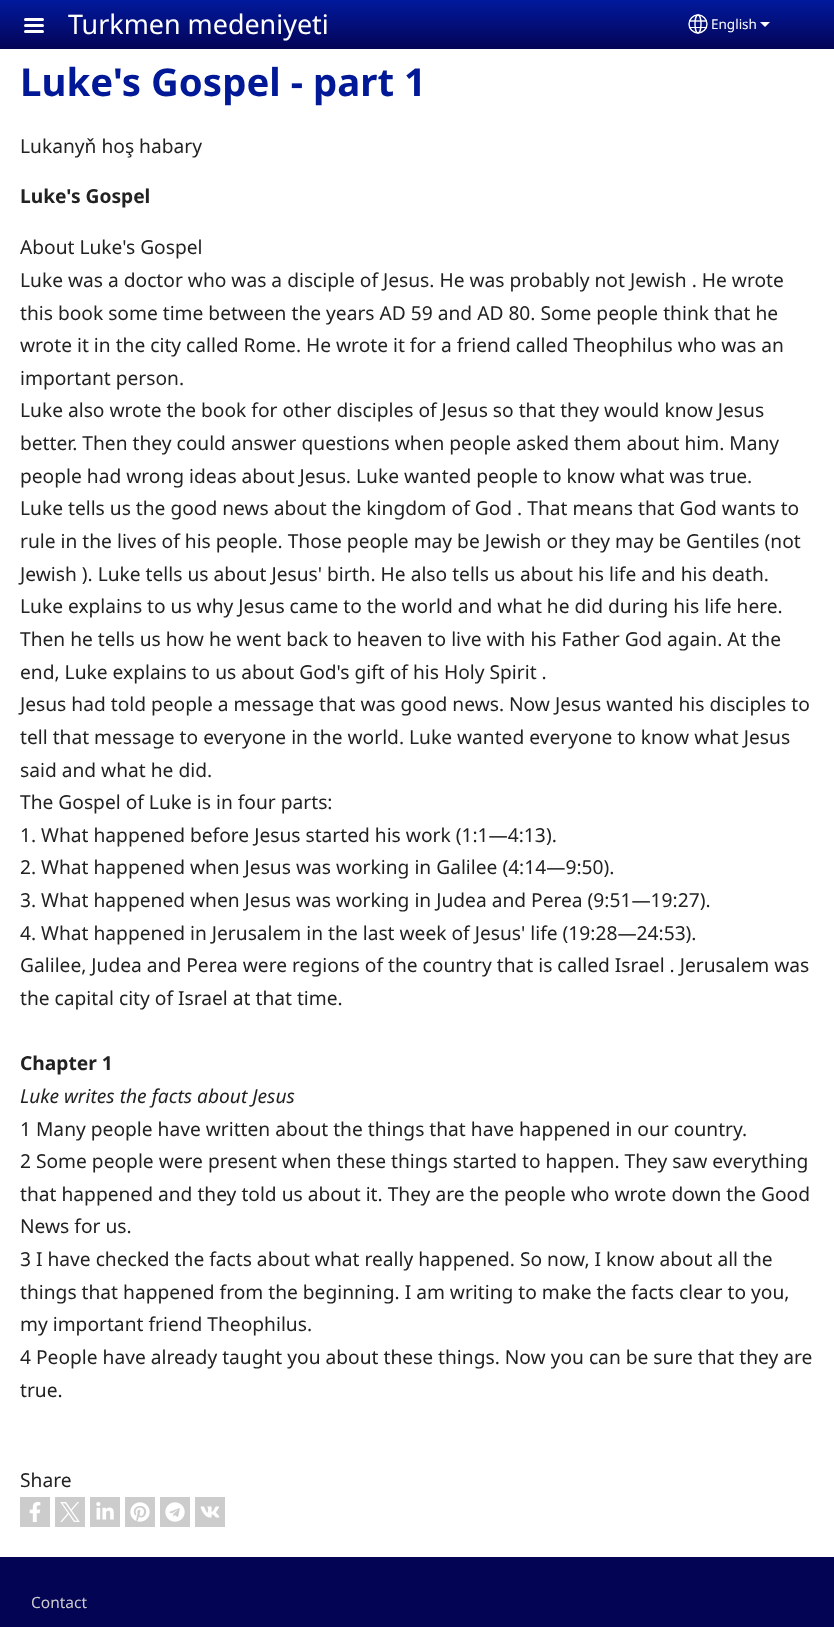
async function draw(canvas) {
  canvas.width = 834;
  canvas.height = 1627;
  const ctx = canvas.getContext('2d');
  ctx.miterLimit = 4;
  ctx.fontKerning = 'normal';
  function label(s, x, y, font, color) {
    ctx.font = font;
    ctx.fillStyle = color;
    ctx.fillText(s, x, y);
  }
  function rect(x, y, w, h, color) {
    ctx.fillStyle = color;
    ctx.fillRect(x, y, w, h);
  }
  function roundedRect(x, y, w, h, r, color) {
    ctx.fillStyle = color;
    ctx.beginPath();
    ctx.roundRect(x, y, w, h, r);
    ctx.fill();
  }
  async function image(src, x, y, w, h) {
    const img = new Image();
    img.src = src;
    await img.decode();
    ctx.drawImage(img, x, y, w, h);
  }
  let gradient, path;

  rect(0, 0, 834, 1627, '#fff');
  gradient = ctx.createLinearGradient(417, 0, 417, 49);
  gradient.addColorStop(0, '#01199d');
  gradient.addColorStop(1, '#040456');
  ctx.fillStyle = gradient;
  ctx.fillRect(0, 0, 834, 49);
  roundedRect(24, 18, 20, 3, 1.5, '#fffffe');
  roundedRect(24, 24, 20, 3, 1.5, '#fffffe');
  roundedRect(24, 30, 20, 3, 1.5, '#fffffe');
  label('Turkmen medeniyeti', 68, 34, '26.9px Noto Sans', '#fffffe');
  ctx.beginPath();
  ctx.arc(698, 24, 9, 0, 2 * Math.PI);
  ctx.strokeStyle = '#fffffe';
  ctx.lineWidth = 1.4;
  ctx.stroke();
  ctx.beginPath();
  ctx.ellipse(698, 24, 3, 9, 0, 0, 2 * Math.PI);
  ctx.stroke();
  path = new Path2D('M689 21H706.5');
  ctx.stroke(path);
  rect(689, 27, 18, 1, '#fffffe');
  label('English', 711, 29, '13.5px Noto Sans', '#fffffe');
  path = new Path2D('M760 22H770L765 27Z');
  ctx.fill(path);
  label('Luke\'s Gospel - part 1', 20, 96, 'bold 38.4px Noto Sans', '#011996');
  label('Lukanyň hoş habary', 20, 153, '19.2px Noto Sans', '#222');
  label('Luke\'s Gospel', 20, 203, 'bold 19.2px Noto Sans', '#222');
  label('About Luke\'s Gospel', 20, 254, '19.2px Noto Sans', '#222');
  label('Luke was a doctor who was a disciple of Jesus. He was probably not Jewish . He wrote', 20, 287, '19.2px Noto Sans', '#222');
  label('this book some time between the years AD 59 and AD 80. Some people think that he', 20, 320, '19.2px Noto Sans', '#222');
  label('wrote it in the city called Rome. He wrote it for a friend called Theophilus who was an', 20, 352, '19.2px Noto Sans', '#222');
  label('important person.', 20, 385, '19.2px Noto Sans', '#222');
  label('Luke also wrote the book for other disciples of Jesus so that they would know Jesus', 20, 417, '19.2px Noto Sans', '#222');
  label('better. Then they could answer questions when people asked them about him. Many', 20, 450, '19.2px Noto Sans', '#222');
  label('people had wrong ideas about Jesus. Luke wanted people to know what was true.', 20, 483, '19.2px Noto Sans', '#222');
  label('Luke tells us the good news about the kingdom of God . That means that God wants to', 20, 515, '19.2px Noto Sans', '#222');
  label('rule in the lives of his people. Those people may be Jewish or they may be Gentiles (not', 20, 548, '19.2px Noto Sans', '#222');
  label('Jewish ). Luke tells us about Jesus\' birth. He also tells us about his life and his death.', 20, 581, '19.2px Noto Sans', '#222');
  label('Luke explains to us why Jesus came to the world and what he did during his life here.', 20, 613, '19.2px Noto Sans', '#222');
  label('Then he tells us how he went back to heaven to live with his Father God again. At the', 20, 646, '19.2px Noto Sans', '#222');
  label('end, Luke explains to us about God\'s gift of his Holy Spirit .', 20, 679, '19.2px Noto Sans', '#222');
  label('Jesus had told people a message that was good news. Now Jesus wanted his disciples to', 20, 711, '19.2px Noto Sans', '#222');
  label('tell that message to everyone in the world. Luke wanted everyone to know what Jesus', 20, 744, '19.2px Noto Sans', '#222');
  label('said and what he did.', 20, 777, '19.2px Noto Sans', '#222');
  label('The Gospel of Luke is in four parts:', 20, 809, '19.2px Noto Sans', '#222');
  label('1. What happened before Jesus started his work (1:1—4:13', 20, 842, '19.2px Noto Sans', '#222');
  label(').', 546, 842, '19.2px Noto Sans', '#222');
  label('2. What happened when Jesus was working in Galilee (4:14—9:50).', 20, 874, '19.2px Noto Sans', '#222');
  label('3. What happened when Jesus was working in Judea and Perea (9:51—19:27).', 20, 907, '19.2px Noto Sans', '#222');
  label('4. What happened in Jerusalem in the last week of Jesus\' life (19:28—24:53).', 20, 940, '19.2px Noto Sans', '#222');
  label('Galilee, Judea and Perea were regions of the country that is called Israel . Jerusalem was', 20, 972, '19.2px Noto Sans', '#222');
  label('the capital city of Israel at that time.', 20, 1005, '19.2px Noto Sans', '#222');
  label('Chapter 1', 20, 1070, 'bold 19.2px Noto Sans', '#222');
  label('Luke writes the facts about Jesus', 20, 1103, 'italic 19.2px Noto Sans', '#222');
  label('1 Many people have written about the things that have happened in our country.', 20, 1136, '19.2px Noto Sans', '#222');
  label('2 Some people were present when these things started to happen. They saw everything', 20, 1168, '19.2px Noto Sans', '#222');
  label('that happened and they told us about it. They are the people who wrote down the Good', 20, 1201, '19.2px Noto Sans', '#222');
  label('News for us.', 20, 1233, '19.2px Noto Sans', '#222');
  label('3 I have checked the facts about what really happened. So now, I know about all the', 20, 1266, '19.2px Noto Sans', '#222');
  label('things that happened from the beginning. I am writing to make the facts clear to you,', 20, 1299, '19.2px Noto Sans', '#222');
  label('my important friend Theophilus.', 20, 1331, '19.2px Noto Sans', '#222');
  label('4 People have already taught you about these things. Now you can be sure that they are', 20, 1364, '19.2px Noto Sans', '#222');
  label('true.', 20, 1397, '19.2px Noto Sans', '#222');
  label('Share', 20, 1487, '19.2px Noto Sans', '#222');
  rect(20, 1497, 30, 30, '#ccc');
  await image('assets/img1.png', 29, 1502, 12, 20);
  rect(55, 1497, 30, 30, '#ccc');
  await image('assets/img2.png', 60, 1502, 20, 20);
  rect(90, 1497, 30, 30, '#ccc');
  await image('assets/img3.png', 96, 1502, 18, 18);
  rect(125, 1497, 30, 30, '#ccc');
  await image('assets/img4.png', 130, 1502, 20, 20);
  rect(160, 1497, 30, 30, '#ccc');
  await image('assets/img5.png', 165, 1502, 20, 20);
  rect(195, 1497, 30, 30, '#ccc');
  await image('assets/img6.png', 200, 1506, 20, 12);
  rect(0, 1557, 834, 70, '#040455');
  label('Contact', 31, 1608, '15.5px Noto Sans', '#ccc');
}

draw(document.querySelector('canvas'));
